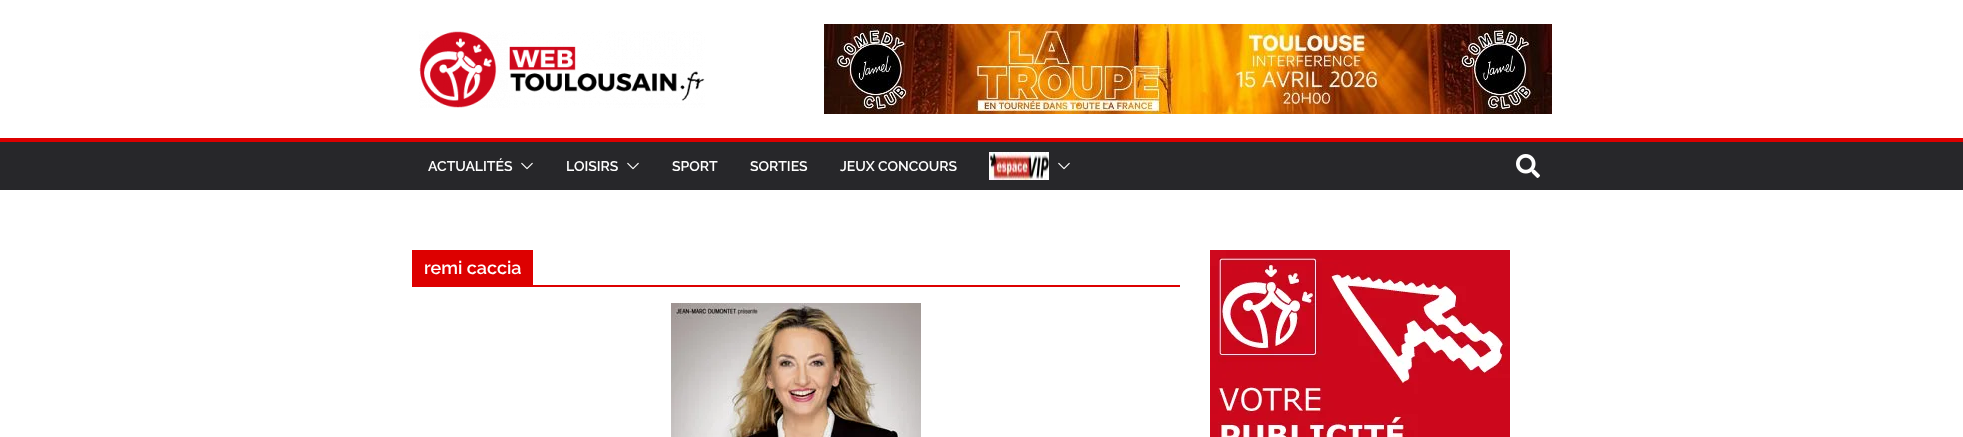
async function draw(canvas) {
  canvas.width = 1963;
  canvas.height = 437;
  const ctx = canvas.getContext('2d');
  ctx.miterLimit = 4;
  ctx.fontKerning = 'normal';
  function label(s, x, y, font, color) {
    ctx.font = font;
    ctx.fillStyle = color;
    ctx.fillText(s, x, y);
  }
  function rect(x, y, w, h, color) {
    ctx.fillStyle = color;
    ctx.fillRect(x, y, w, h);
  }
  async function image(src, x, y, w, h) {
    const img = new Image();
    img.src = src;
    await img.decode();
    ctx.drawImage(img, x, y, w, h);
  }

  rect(0, 0, 1963, 437, '#fff');
  await image('assets/img1.png', 419, 31, 286, 77);
  await image('assets/img2.png', 824, 24, 728, 90);
  rect(0, 142, 1963, 48, '#27272a');
  rect(0, 138, 1963, 4, '#d00');
  label('ACTUALITÉS', 428, 171, '600 14px Raleway', '#fff');
  await image('assets/img3.png', 521, 162, 12, 8);
  label('LOISIRS', 566, 171, '600 14px Raleway', '#fff');
  await image('assets/img3.png', 627, 162, 12, 8);
  label('SPORT', 672, 171, '600 14px Raleway', '#fff');
  label('SORTIES', 750, 171, '600 14px Raleway', '#fff');
  label('JEUX CONCOURS', 840, 171, '600 14px Raleway', '#fff');
  await image('assets/img4.png', 989, 152, 60, 28);
  await image('assets/img3.png', 1058, 162, 12, 8);
  await image('assets/img5.png', 1516, 154, 24, 24);
  rect(412, 285, 768, 2, '#d00');
  rect(412, 250, 121, 35, '#d00');
  label('remi caccia', 424, 274, '600 18px Raleway', '#fff');
  await image('assets/img6.png', 671, 303, 250, 134);
  await image('assets/img7.png', 1210, 250, 300, 187);
}

draw(document.querySelector('canvas'));
